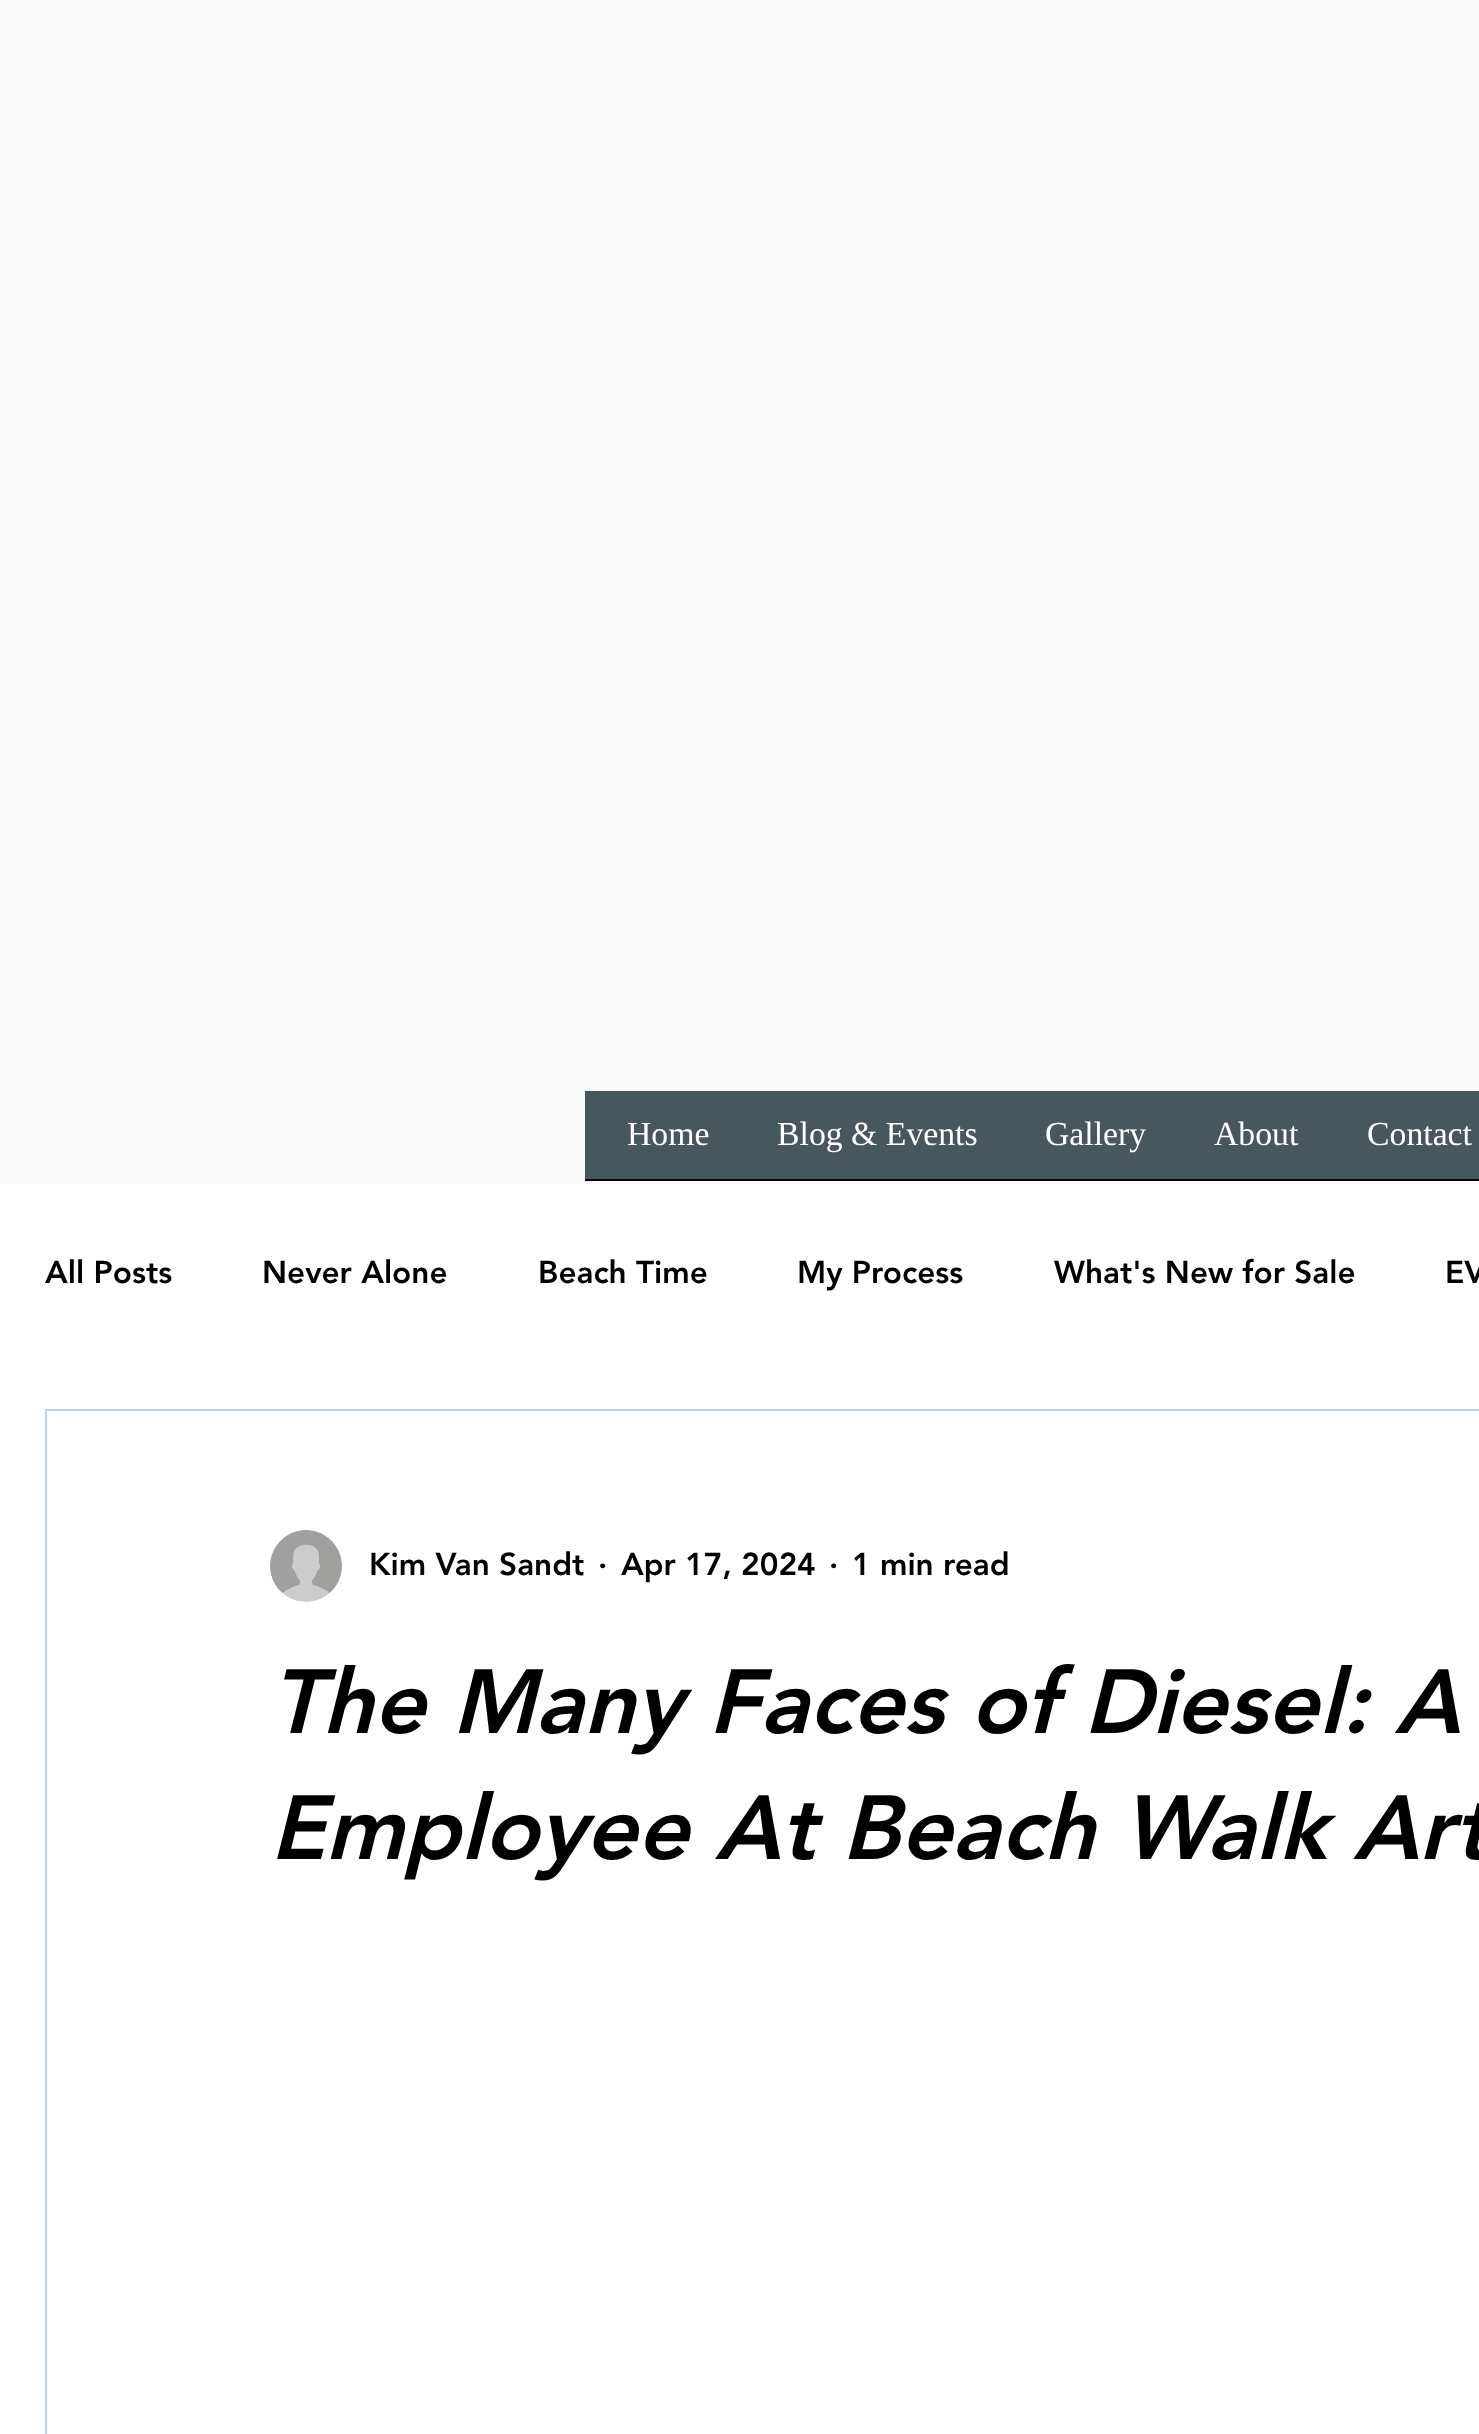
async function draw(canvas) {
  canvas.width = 1479;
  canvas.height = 2434;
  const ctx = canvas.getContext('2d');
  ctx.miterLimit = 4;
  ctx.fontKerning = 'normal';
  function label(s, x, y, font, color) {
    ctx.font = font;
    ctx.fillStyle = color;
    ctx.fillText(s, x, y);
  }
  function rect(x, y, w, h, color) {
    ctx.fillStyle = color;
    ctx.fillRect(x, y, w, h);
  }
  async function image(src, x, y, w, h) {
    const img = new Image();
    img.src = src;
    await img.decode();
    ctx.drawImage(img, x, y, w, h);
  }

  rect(0, 0, 1479, 2434, '#fff');
  rect(0, 0, 1479, 1184, '#fafafa');
  rect(585, 1091, 894, 88, '#46575d');
  rect(585, 1179, 894, 2, '#000');
  label('Home', 627, 1145, '33.75px Liberation Serif', '#fff');
  label('Blog & Events', 777, 1145, '33.75px Liberation Serif', '#fff');
  label('Gallery', 1045, 1145, '33.75px Liberation Serif', '#fff');
  label('About', 1214, 1145, '33.75px Liberation Serif', '#fff');
  label('Contact', 1367, 1145, '33.75px Liberation Serif', '#fff');
  label('All Posts', 45, 1283, '900 31.5px "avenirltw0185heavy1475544"', '#000');
  label('Never Alone', 262, 1283, '900 31.5px "avenirltw0185heavy1475544"', '#000');
  label('Beach Time', 538, 1283, '900 31.5px "avenirltw0185heavy1475544"', '#000');
  label('My Process', 797, 1283, '900 31.5px "avenirltw0185heavy1475544"', '#000');
  label('What\'s New for Sale', 1054, 1283, '900 31.5px "avenirltw0185heavy1475544"', '#000');
  label('EV', 1445, 1283, '900 31.5px "avenirltw0185heavy1475544"', '#000');
  ctx.strokeStyle = '#bfcef8';
  ctx.lineWidth = 2;
  ctx.strokeRect(46, 1410, 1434, 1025);
  await image('assets/img1.png', 270, 1530, 72, 72);
  label('Kim Van Sandt', 369, 1575, '900 31.5px "avenirltw0185heavy1475544"', '#000');
  label('·', 598, 1575, '900 31.5px "avenirltw0185heavy1475544"', '#000');
  label('Apr 17, 2024', 621, 1575, '900 31.5px "avenirltw0185heavy1475544"', '#000');
  label('·', 829, 1575, '900 31.5px "avenirltw0185heavy1475544"', '#000');
  label('1 min read', 852, 1575, '900 31.5px "avenirltw0185heavy1475544"', '#000');
  label('The Many Faces of Diesel: A', 270, 1733, 'italic 900 90px "avenirltw0185heavy1475544"', '#000');
  label('Employee At Beach Walk Art', 270, 1859, 'italic 900 90px "avenirltw0185heavy1475544"', '#000');
}

draw(document.querySelector('canvas'));
